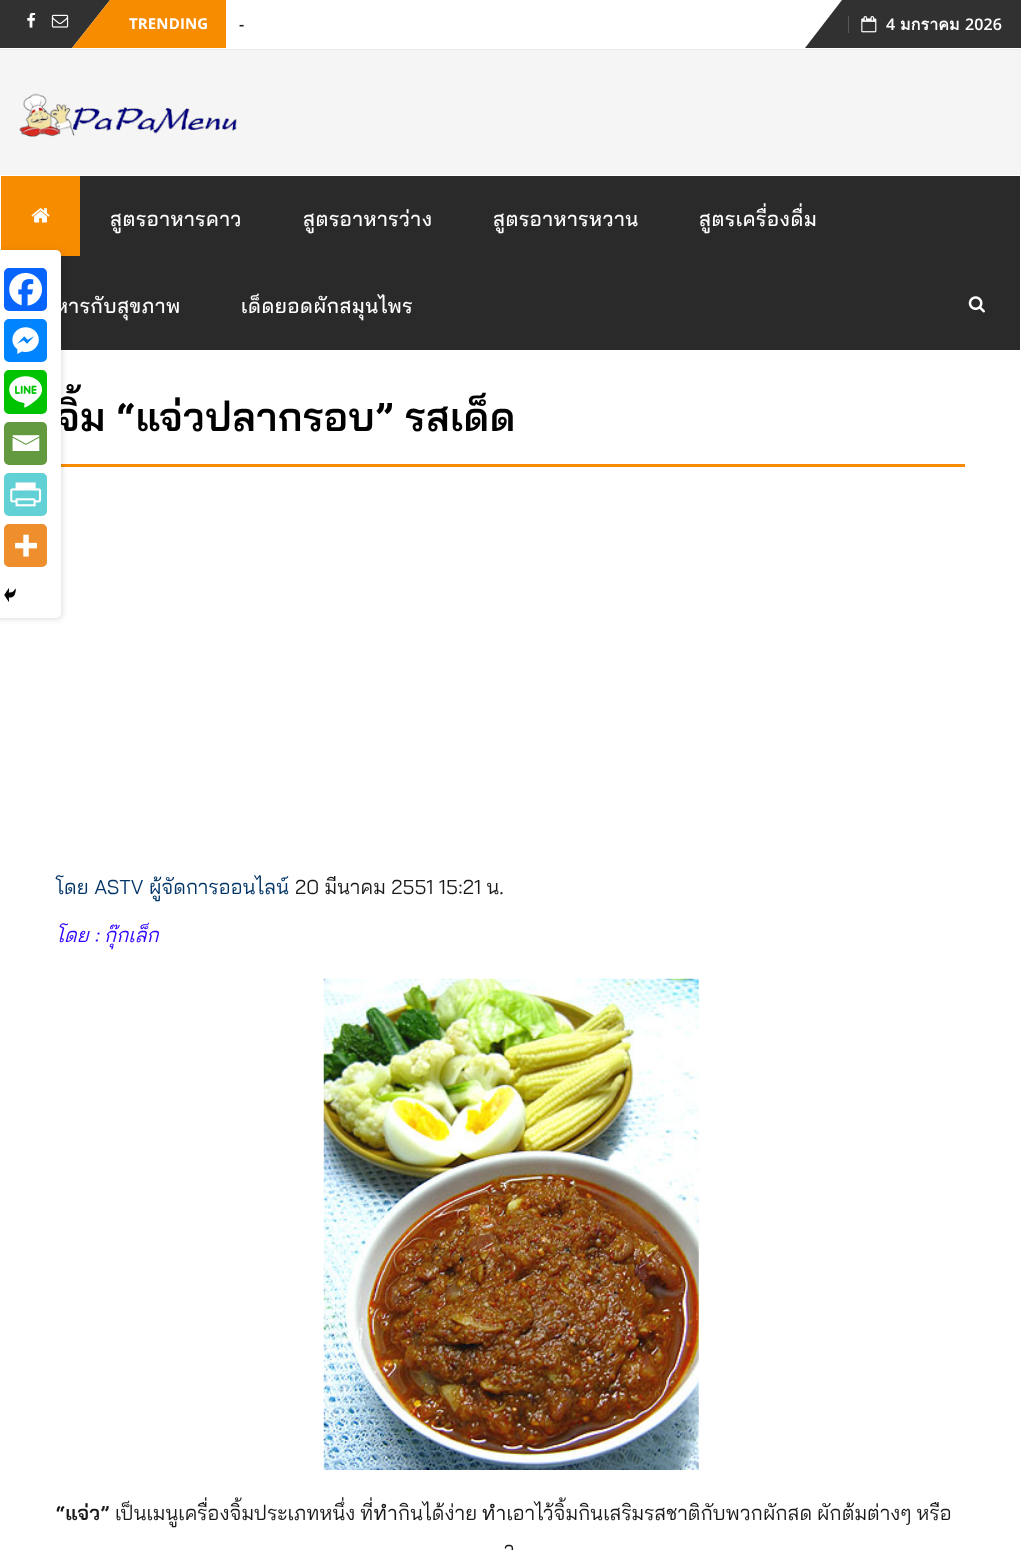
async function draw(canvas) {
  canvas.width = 1021;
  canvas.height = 1550;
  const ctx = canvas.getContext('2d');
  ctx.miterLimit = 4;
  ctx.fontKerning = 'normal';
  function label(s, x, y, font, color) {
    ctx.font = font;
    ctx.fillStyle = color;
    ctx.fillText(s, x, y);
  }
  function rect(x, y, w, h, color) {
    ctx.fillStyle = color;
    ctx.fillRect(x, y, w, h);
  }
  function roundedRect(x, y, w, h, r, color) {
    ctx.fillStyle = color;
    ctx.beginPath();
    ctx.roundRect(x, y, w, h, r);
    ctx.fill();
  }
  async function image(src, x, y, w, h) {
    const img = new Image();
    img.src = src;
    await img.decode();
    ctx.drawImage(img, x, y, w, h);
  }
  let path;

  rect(0, 0, 1021, 1550, '#fff');
  rect(0, 49, 1021, 1, '#eaeaea');
  ctx.fillStyle = '#313131';
  path = new Path2D('M0 0H110L72 48H0Z');
  ctx.fill(path);
  await image('assets/img1.png', 27, 13, 9, 15);
  await image('assets/img2.png', 51, 14, 18, 14);
  ctx.fillStyle = '#f88c00';
  path = new Path2D('M226 48H72L110 0H226Z');
  ctx.fill(path);
  ctx.letterSpacing = '0.12px';
  label('TRENDING', 129, 29, 'bold 15px Open Sans', '#fff');
  label('-', 239, 30, '600 16px Open Sans', '#191919');
  ctx.fillStyle = '#313131';
  path = new Path2D('M1021 48H805L842 0H1021Z');
  ctx.fill(path);
  rect(848, 16, 1, 17, '#595959');
  await image('assets/img3.png', 861, 16, 16, 17);
  label('4', 886, 30, '600 16px Open Sans', '#fff');
  label('มกราคม', 900, 30, 'bold 16px Loma', '#fff');
  label('2026', 965, 30, '600 16px Open Sans', '#fff');
  rect(0, 50, 1021, 125, '#f5f5f5');
  await image('assets/img4.png', 19, 93, 218, 44);
  rect(61, 176, 959, 174, '#2a2a2a');
  rect(1, 176, 79, 80, '#f88c00');
  await image('assets/img5.png', 31, 208, 19, 15);
  ctx.letterSpacing = '0.6px';
  label('สูตรอาหารคาว', 110, 226, '500 20px Bai Jamjuree', '#fff');
  label('สูตรอาหารว่าง', 303, 226, '500 20px Bai Jamjuree', '#fff');
  label('สูตรอาหารหวาน', 493, 226, '500 20px Bai Jamjuree', '#fff');
  label('สูตรเครื่องดื่ม', 699, 226, '500 20px Bai Jamjuree', '#fff');
  label('หารกับสุขภาพ', 55, 313, '500 20px Bai Jamjuree', '#fff');
  label('เด็ดยอดผักสมุนไพร', 241, 313, '500 20px Bai Jamjuree', '#fff');
  await image('assets/img6.png', 968, 296, 17, 17);
  rect(56, 464, 909, 3, '#f88c00');
  ctx.letterSpacing = '0.12px';
  label('จิ้ม “แจ่วปลากรอบ” รสเด็ด', 56, 431, '600 40px Bai Jamjuree', '#000');
  ctx.fillStyle = '#0000001a';
  ctx.filter = 'blur(2.5px)';
  ctx.beginPath();
  ctx.roundRect(-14, 250, 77, 370, 6);
  ctx.fill();
  ctx.filter = 'none';
  roundedRect(-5, 250, 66, 368, 5, '#fff');
  ctx.fillStyle = '#0765fe';
  ctx.beginPath();
  ctx.roundRect(2, 266, 47, 47, 7);
  ctx.fill();
  ctx.strokeStyle = '#fff';
  ctx.lineWidth = 4;
  ctx.stroke();
  await image('assets/img7.png', 9, 273, 33, 33);
  ctx.fillStyle = '#0084ff';
  ctx.beginPath();
  ctx.roundRect(2, 317, 47, 47, 7);
  ctx.fill();
  ctx.stroke();
  await image('assets/img8.png', 12, 327, 27, 27);
  ctx.fillStyle = '#00c300';
  ctx.beginPath();
  ctx.roundRect(2, 368, 47, 48, 7);
  ctx.fill();
  ctx.stroke();
  await image('assets/img9.png', 9, 376, 33, 32);
  ctx.fillStyle = '#649a3f';
  ctx.beginPath();
  ctx.roundRect(2, 420, 47, 47, 7);
  ctx.fill();
  ctx.stroke();
  await image('assets/img10.png', 12, 435, 28, 16);
  ctx.fillStyle = '#61d1d5';
  ctx.beginPath();
  ctx.roundRect(2, 471, 47, 47, 7);
  ctx.fill();
  ctx.stroke();
  await image('assets/img11.png', 10, 482, 32, 25);
  ctx.fillStyle = '#ee8e2d';
  ctx.beginPath();
  ctx.roundRect(2, 522, 47, 47, 7);
  ctx.fill();
  ctx.stroke();
  await image('assets/img12.png', 15, 534, 22, 23);
  await image('assets/img13.png', 4, 588, 12, 14);
  label('โดย ASTV ผู้จัดการออนไลน์', 56, 894, '20px Bai Jamjuree', '#036');
  label('20 มีนาคม 2551 15:21 น.', 295, 894, '20px Bai Jamjuree', '#191919');
  label('โดย : กุ๊กเล็ก', 56, 942, 'italic 20px Bai Jamjuree', '#30f');
  await image('assets/img14.png', 323, 978, 376, 492);
  label('“แจ่ว”', 56, 1520, '600 20px Bai Jamjuree', '#191919');
  ctx.wordSpacing = '-0.5px';
  label('เป็นเมนูเครื่องจิ้มประเภทหนึ่ง ที่ทำกินได้ง่าย ทำเอาไว้จิ้มกินเสริมรสชาติกับพวกผักสด ผักต้มต่างๆ หรือ', 115, 1520, '20px Bai Jamjuree', '#191919');
  ctx.wordSpacing = '-1px';
  label('ว', 504, 1556, '20px Bai Jamjuree', '#191919');
}

draw(document.querySelector('canvas'));
